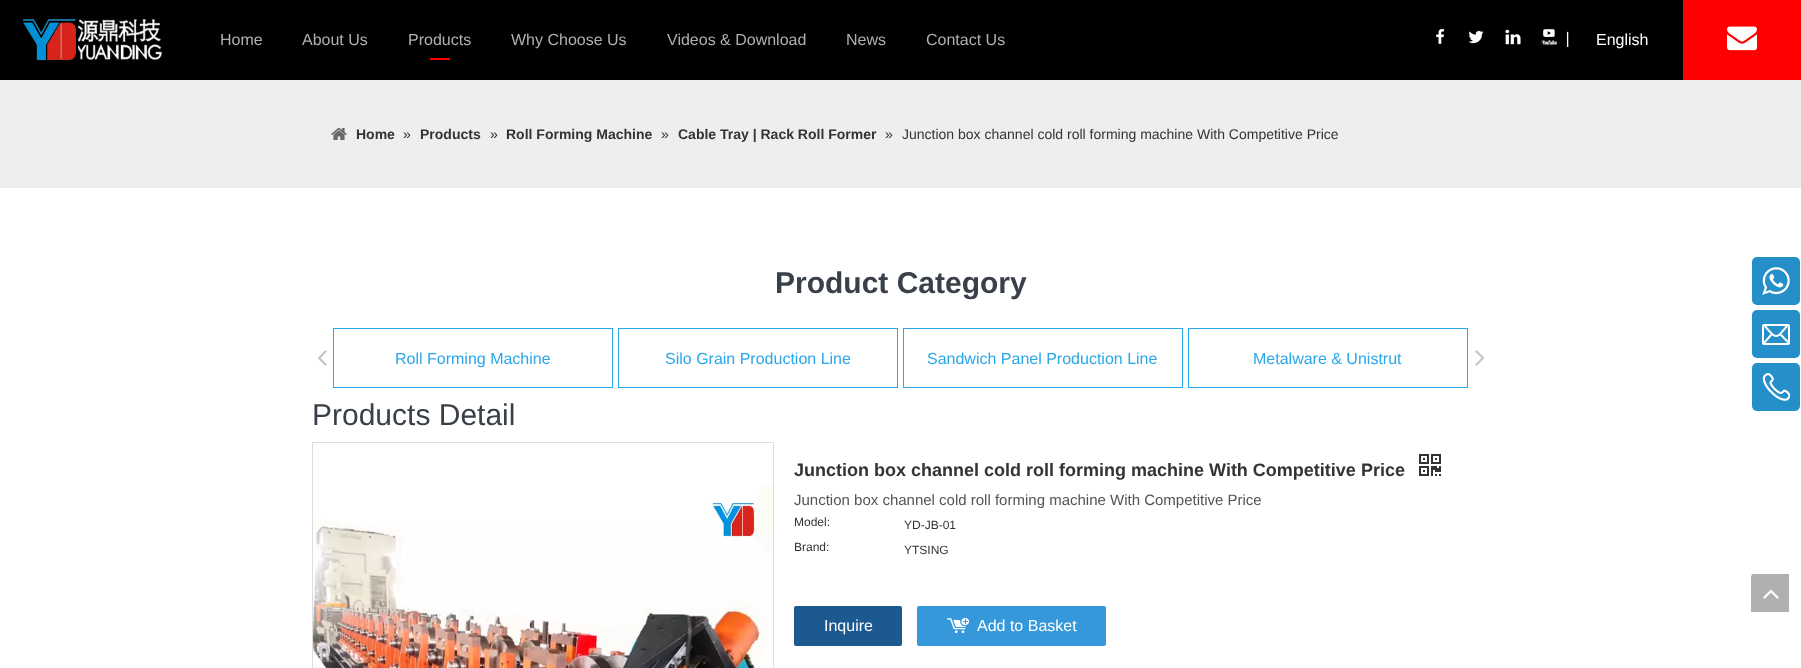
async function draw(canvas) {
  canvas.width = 1801;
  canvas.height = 668;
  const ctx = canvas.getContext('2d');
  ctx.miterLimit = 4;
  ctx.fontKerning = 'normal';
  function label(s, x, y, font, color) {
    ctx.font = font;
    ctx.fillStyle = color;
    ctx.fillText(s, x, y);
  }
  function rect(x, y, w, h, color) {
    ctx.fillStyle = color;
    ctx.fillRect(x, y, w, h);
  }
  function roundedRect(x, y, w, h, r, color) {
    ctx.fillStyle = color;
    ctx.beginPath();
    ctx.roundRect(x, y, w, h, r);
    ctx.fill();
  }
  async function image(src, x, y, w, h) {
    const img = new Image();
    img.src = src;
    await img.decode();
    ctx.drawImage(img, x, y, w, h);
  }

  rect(0, 0, 1801, 668, '#fff');
  rect(0, 0, 1683, 80, '#000');
  await image('assets/img1.png', 23, 19, 140, 42);
  label('Home', 220, 45, '16px Liberation Sans', '#b1b0b0');
  label('About Us', 302, 45, '16px Liberation Sans', '#b1b0b0');
  label('Products', 408, 45, '16px Liberation Sans', '#b1b0b0');
  rect(430, 58, 20, 2, '#f00');
  label('Why Choose Us', 511, 45, '16px Liberation Sans', '#b1b0b0');
  label('Videos & Download', 667, 45, '16px Liberation Sans', '#b1b0b0');
  label('News', 846, 45, '16px Liberation Sans', '#b1b0b0');
  label('Contact Us', 926, 45, '16px Liberation Sans', '#b1b0b0');
  await image('assets/img2.png', 1436, 29, 8, 15);
  await image('assets/img3.png', 1468, 30, 16, 14);
  await image('assets/img4.png', 1505, 29, 16, 16);
  await image('assets/img5.png', 1541, 29, 16, 16);
  label('丨', 1560, 45, '500 16px WenQuanYi Zen Hei', '#fff');
  rect(1683, 0, 118, 80, '#f00');
  await image('assets/img6.png', 1727, 26, 30, 25);
  label('English', 1596, 45, '16px Liberation Sans', '#fff');
  rect(0, 80, 1801, 108, '#eee');
  await image('assets/img7.png', 331, 128, 16, 12);
  label('Home', 356, 139, 'bold 14px Liberation Sans', '#333');
  label('»', 403, 139, '14px Liberation Sans', '#333');
  label('Products', 420, 139, 'bold 14px Liberation Sans', '#333');
  label('»', 490, 139, '14px Liberation Sans', '#333');
  label('Roll Forming Machine', 506, 139, 'bold 14px Liberation Sans', '#333');
  label('»', 661, 139, '14px Liberation Sans', '#333');
  label('Cable Tray | Rack Roll Former', 678, 139, 'bold 14px Liberation Sans', '#333');
  label('»', 885, 139, '14px Liberation Sans', '#333');
  label('Junction box channel cold roll forming machine With Competitive Price', 902, 139, '14px Liberation Sans', '#333');
  label('Product Category', 775, 293, 'bold 30px Liberation Sans', '#3a4049');
  await image('assets/img8.png', 317, 350, 10, 16);
  ctx.strokeStyle = '#2aa7ea';
  ctx.strokeRect(333.5, 328.5, 279, 59);
  label('Roll Forming Machine', 395, 364, '16px Liberation Sans', '#2aa7ea');
  ctx.strokeRect(618.5, 328.5, 279, 59);
  label('Silo Grain Production Line', 665, 364, '16px Liberation Sans', '#2aa7ea');
  ctx.strokeRect(903.5, 328.5, 279, 59);
  label('Sandwich Panel Production Line', 927, 364, '16px Liberation Sans', '#2aa7ea');
  ctx.strokeRect(1188.5, 328.5, 279, 59);
  label('Metalware & Unistrut', 1253, 364, '16px Liberation Sans', '#2aa7ea');
  await image('assets/img9.png', 1475, 350, 10, 16);
  label('Products Detail', 312, 425, '30px Liberation Sans', '#3a4049');
  ctx.strokeStyle = '#ddd';
  ctx.strokeRect(312.5, 442.5, 461, 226);
  await image('assets/img10.png', 313, 484, 460, 184);
  label('Junction box channel cold roll forming machine With Competitive Price', 794, 476, 'bold 18px Liberation Sans', '#333');
  await image('assets/img11.png', 1419, 454, 22, 22);
  label('Junction box channel cold roll forming machine With Competitive Price', 794, 505, '15px Liberation Sans', '#545454');
  label('Model:', 794, 526, '12px Liberation Sans', '#333');
  label('YD-JB-01', 904, 529, '12px Liberation Sans', '#333');
  label('Brand:', 794, 551, '12px Liberation Sans', '#333');
  label('YTSING', 904, 554, '12px Liberation Sans', '#333');
  roundedRect(794, 606, 108, 40, 2, '#1d5991');
  label('Inquire', 824, 631, '16px Liberation Sans', '#fff');
  roundedRect(917, 606, 189, 40, 2, '#3498db');
  await image('assets/img12.png', 947, 618, 22, 15);
  label('Add to Basket', 977, 631, '16px Liberation Sans', '#fff');
  roundedRect(1752, 257, 48, 48, 5, '#248fc8');
  await image('assets/img13.png', 1762, 267, 28, 28);
  roundedRect(1752, 310, 48, 48, 5, '#248fc8');
  await image('assets/img14.png', 1762, 324, 28, 21);
  roundedRect(1752, 363, 48, 48, 5, '#248fc8');
  await image('assets/img15.png', 1762, 373, 28, 28);
  await image('assets/img16.png', 1751, 574, 38, 38);
}

draw(document.querySelector('canvas'));
